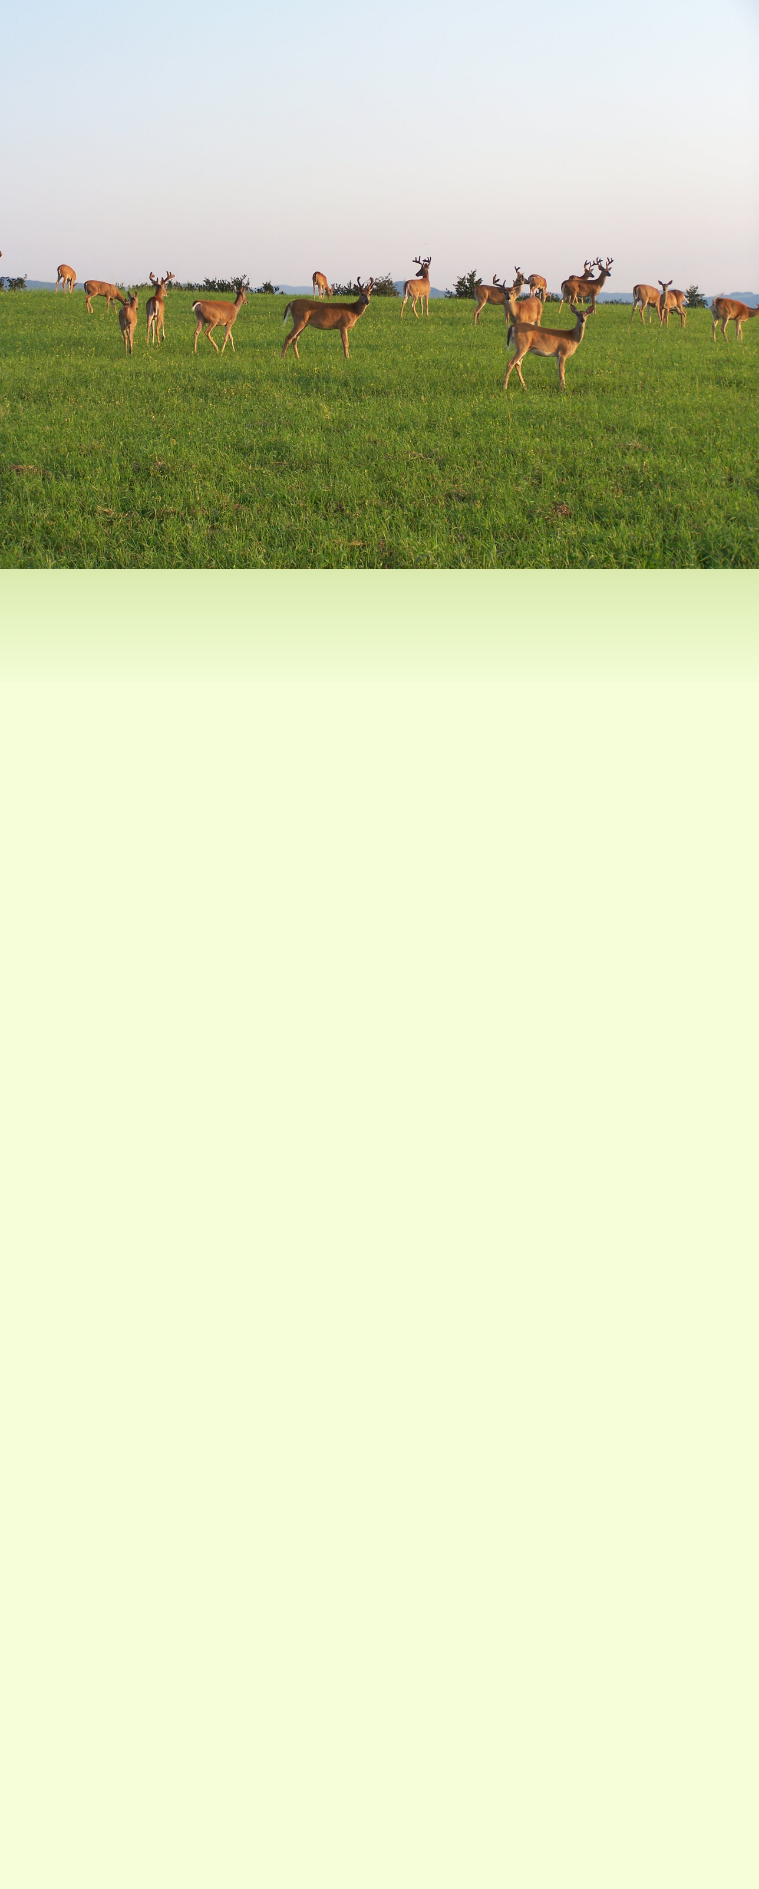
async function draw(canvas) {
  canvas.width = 759;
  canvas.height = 1889;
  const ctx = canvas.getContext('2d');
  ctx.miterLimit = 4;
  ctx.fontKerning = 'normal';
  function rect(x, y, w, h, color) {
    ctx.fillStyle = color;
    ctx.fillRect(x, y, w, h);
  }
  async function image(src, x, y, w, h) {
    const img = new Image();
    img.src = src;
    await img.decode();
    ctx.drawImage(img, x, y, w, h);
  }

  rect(0, 0, 759, 1889, '#f6fed9');
  await image('assets/img1.png', 0, 569, 759, 113);
  await image('assets/img2.png', 0, 0, 759, 569);
}

draw(document.querySelector('canvas'));
